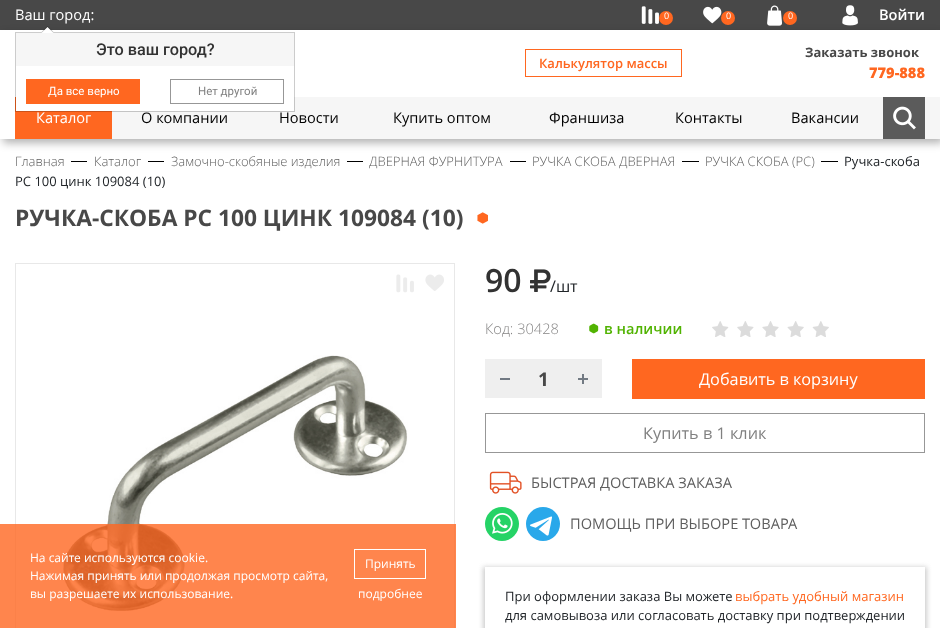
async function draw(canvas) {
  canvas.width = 940;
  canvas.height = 628;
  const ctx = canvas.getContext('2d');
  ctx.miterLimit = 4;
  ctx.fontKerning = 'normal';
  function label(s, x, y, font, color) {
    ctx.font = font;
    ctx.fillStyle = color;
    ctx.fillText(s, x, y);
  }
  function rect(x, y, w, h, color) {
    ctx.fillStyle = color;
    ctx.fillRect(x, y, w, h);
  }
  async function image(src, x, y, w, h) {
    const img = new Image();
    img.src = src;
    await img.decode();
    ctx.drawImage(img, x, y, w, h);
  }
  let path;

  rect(0, 0, 940, 628, '#fff');
  rect(0, 0, 940, 30, '#484848');
  label('Ваш город:', 15, 20, '14.6px Open Sans', '#fff');
  await image('assets/img1.png', 641, 6, 18, 18);
  ctx.fillStyle = '#ff6720';
  ctx.beginPath();
  ctx.arc(666, 18, 7, 0, 2 * Math.PI);
  ctx.fill();
  await image('assets/img2.png', 703, 6, 19, 18);
  ctx.beginPath();
  ctx.arc(728, 18, 7, 0, 2 * Math.PI);
  ctx.fill();
  await image('assets/img3.png', 767, 5, 15, 21);
  ctx.beginPath();
  ctx.arc(790, 18, 7, 0, 2 * Math.PI);
  ctx.fill();
  await image('assets/img4.png', 842, 5, 16, 21);
  ctx.save();
  path = new Path2D('M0 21H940V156H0ZM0 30H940V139H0Z');
  ctx.clip(path, 'evenodd');
  ctx.fillStyle = '#0000004d';
  ctx.filter = 'blur(4px)';
  ctx.beginPath();
  ctx.rect(3, 34, 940, 109);
  ctx.fill();
  ctx.filter = 'none';
  ctx.restore();
  rect(112, 97, 771, 42, '#f6f6f6');
  rect(15, 97, 97, 42, '#ff6720');
  rect(16, 97, 278, 14, '#fff');
  ctx.strokeStyle = '#00000033';
  ctx.strokeRect(15.5, 32.5, 279, 79);
  ctx.fillStyle = '#00000040';
  path = new Path2D('M53.5 32H41.5L47.5 26Z');
  ctx.fill(path);
  ctx.fillStyle = '#fff';
  path = new Path2D('M53.5 33H41.5L47.5 27Z');
  ctx.fill(path);
  rect(16, 33, 278, 33, '#f6f6f6');
  label('Это ваш город?', 96, 55, '500 16.25px Roboto', '#323232');
  rect(26, 79, 114, 25, '#ff6720');
  label('Да все верно', 48, 95, '11.5px Roboto', '#fff');
  ctx.strokeStyle = '#979797';
  ctx.strokeRect(170.5, 79.5, 113, 24);
  label('Нет другой', 198, 95, '11.5px Roboto', '#808080');
  label('0', 664, 19, '9px Open Sans', '#fff');
  label('0', 726, 19, '9px Open Sans', '#fff');
  label('0', 788, 19, '9px Open Sans', '#fff');
  label('Войти', 879, 20, '600 14.6px Open Sans', '#fff');
  ctx.strokeStyle = '#ff6720';
  ctx.strokeRect(525.5, 49.5, 156, 27);
  label('Калькулятор массы', 539, 68, '600 13px Open Sans', '#ff6720');
  label('Заказать звонок', 805, 57, 'bold 13px Open Sans', '#484848');
  label('779-888', 869, 78, '800 14.6px Open Sans', '#ff6720');
  label('Каталог', 36, 123, '14.6px Open Sans', '#fff');
  label('О компании', 141, 123, '14.6px Open Sans', '#000');
  label('Новости', 279, 123, '14.6px Open Sans', '#000');
  label('Купить оптом', 393, 123, '14.6px Open Sans', '#000');
  label('Франшиза', 549, 123, '14.6px Open Sans', '#000');
  label('Контакты', 675, 123, '14.6px Open Sans', '#000');
  label('Вакансии', 791, 123, '14.6px Open Sans', '#000');
  rect(883, 97, 42, 42, '#5b5b5b');
  await image('assets/img5.png', 893, 106, 23, 24);
  rect(925, 97, 15, 42, '#f6f6f6');
  label('Главная', 15, 166, '300 13px Open Sans', '#5e5e5e');
  rect(71, 161, 16, 1, '#000');
  label('Каталог', 94, 166, '300 13px Open Sans', '#5e5e5e');
  rect(148, 161, 16, 1, '#000');
  label('Замочно-скобяные изделия', 171, 166, '300 13px Open Sans', '#5e5e5e');
  rect(347, 161, 16, 1, '#000');
  label('ДВЕРНАЯ ФУРНИТУРА', 369, 166, '300 13px Open Sans', '#5e5e5e');
  rect(510, 161, 16, 1, '#000');
  label('РУЧКА СКОБА ДВЕРНАЯ', 532, 166, '300 13px Open Sans', '#5e5e5e');
  rect(682, 161, 17, 1, '#000');
  label('РУЧКА СКОБА (РС)', 705, 166, '300 13px Open Sans', '#5e5e5e');
  rect(821, 161, 17, 1, '#000');
  label('Ручка-скоба', 844, 166, '13px Open Sans', '#212529');
  label('РС 100 цинк 109084 (10)', 15, 186, '13px Open Sans', '#212529');
  label('РУЧКА-СКОБА РС 100 ЦИНК 109084 (10)', 15, 226, 'bold 22.75px Open Sans', '#484848');
  await image('assets/img6.png', 477, 212, 11, 12);
  ctx.strokeStyle = '#e8e8e8';
  ctx.strokeRect(15.5, 263.5, 439, 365);
  await image('assets/img7.png', 63, 355, 345, 256);
  await image('assets/img8.png', 396, 274, 18, 19);
  await image('assets/img9.png', 425, 274, 19, 17);
  label('90', 485, 292, '600 32px Open Sans', '#323232');
  await image('assets/img10.png', 530, 269, 21, 23);
  label('/шт', 550, 292, '16px Open Sans', '#212529');
  label('Код: 30428', 485, 334, '300 14.6px Open Sans', '#868585');
  await image('assets/img11.png', 589, 323, 10, 11);
  label('в наличии', 604, 334, '600 14.6px Open Sans', '#51b302');
  await image('assets/img12.png', 712, 321, 117, 16);
  rect(485, 359, 117, 39, '#efefef');
  rect(500, 378, 10, 2, '#717983');
  label('1', 538, 386, 'bold 19px Open Sans', '#484848');
  await image('assets/img13.png', 578, 374, 10, 10);
  rect(632, 359, 293, 40, '#ff6720');
  label('Добавить в корзину', 699, 385, '16.25px Open Sans', '#fff');
  ctx.strokeStyle = '#979797';
  ctx.strokeRect(485.5, 413.5, 439, 39);
  label('Купить в 1 клик', 643, 439, '16.25px Open Sans', '#808080');
  await image('assets/img14.png', 489, 471, 33, 23);
  label('БЫСТРАЯ ДОСТАВКА ЗАКАЗА', 531, 488, '14.6px Open Sans', '#5e5e5e');
  ctx.fillStyle = '#25d366';
  ctx.beginPath();
  ctx.arc(502, 524, 17, 0, 2 * Math.PI);
  ctx.fill();
  await image('assets/img15.png', 492, 513, 21, 21);
  ctx.fillStyle = '#29a8ea';
  ctx.beginPath();
  ctx.arc(543, 524, 17, 0, 2 * Math.PI);
  ctx.fill();
  await image('assets/img16.png', 530, 516, 22, 20);
  label('ПОМОЩЬ ПРИ ВЫБОРЕ ТОВАРА', 570, 529, '14.6px Open Sans', '#5e5e5e');
  ctx.save();
  path = new Path2D('M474 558H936V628H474ZM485 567H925V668H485Z');
  ctx.clip(path, 'evenodd');
  ctx.fillStyle = '#cecece';
  ctx.filter = 'blur(2.5px)';
  ctx.beginPath();
  ctx.rect(483, 567, 444, 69);
  ctx.fill();
  ctx.filter = 'none';
  ctx.restore();
  label('При оформлении заказа Вы можете', 505, 601, '13px Open Sans', '#212529');
  label('выбрать удобный магазин', 735, 601, '13px Open Sans', '#ff6720');
  label('для самовывоза или согласовать доставку при подтверждении', 505, 620, '13px Open Sans', '#212529');
  rect(0, 524, 456, 104, '#ff6720cc');
  label('На сайте используются cookie.', 30, 562, '12px Open Sans', '#fff');
  label('Нажимая принять или продолжая просмотр сайта,', 30, 580, '12px Open Sans', '#fff');
  label('вы разрешаете их использование.', 30, 598, '12px Open Sans', '#fff');
  ctx.strokeStyle = '#fff';
  ctx.strokeRect(354.5, 549.5, 71, 29);
  label('Принять', 365, 568, '12px Open Sans', '#fff');
  label('подробнее', 358, 598, '12px Open Sans', '#fff');
}

draw(document.querySelector('canvas'));
